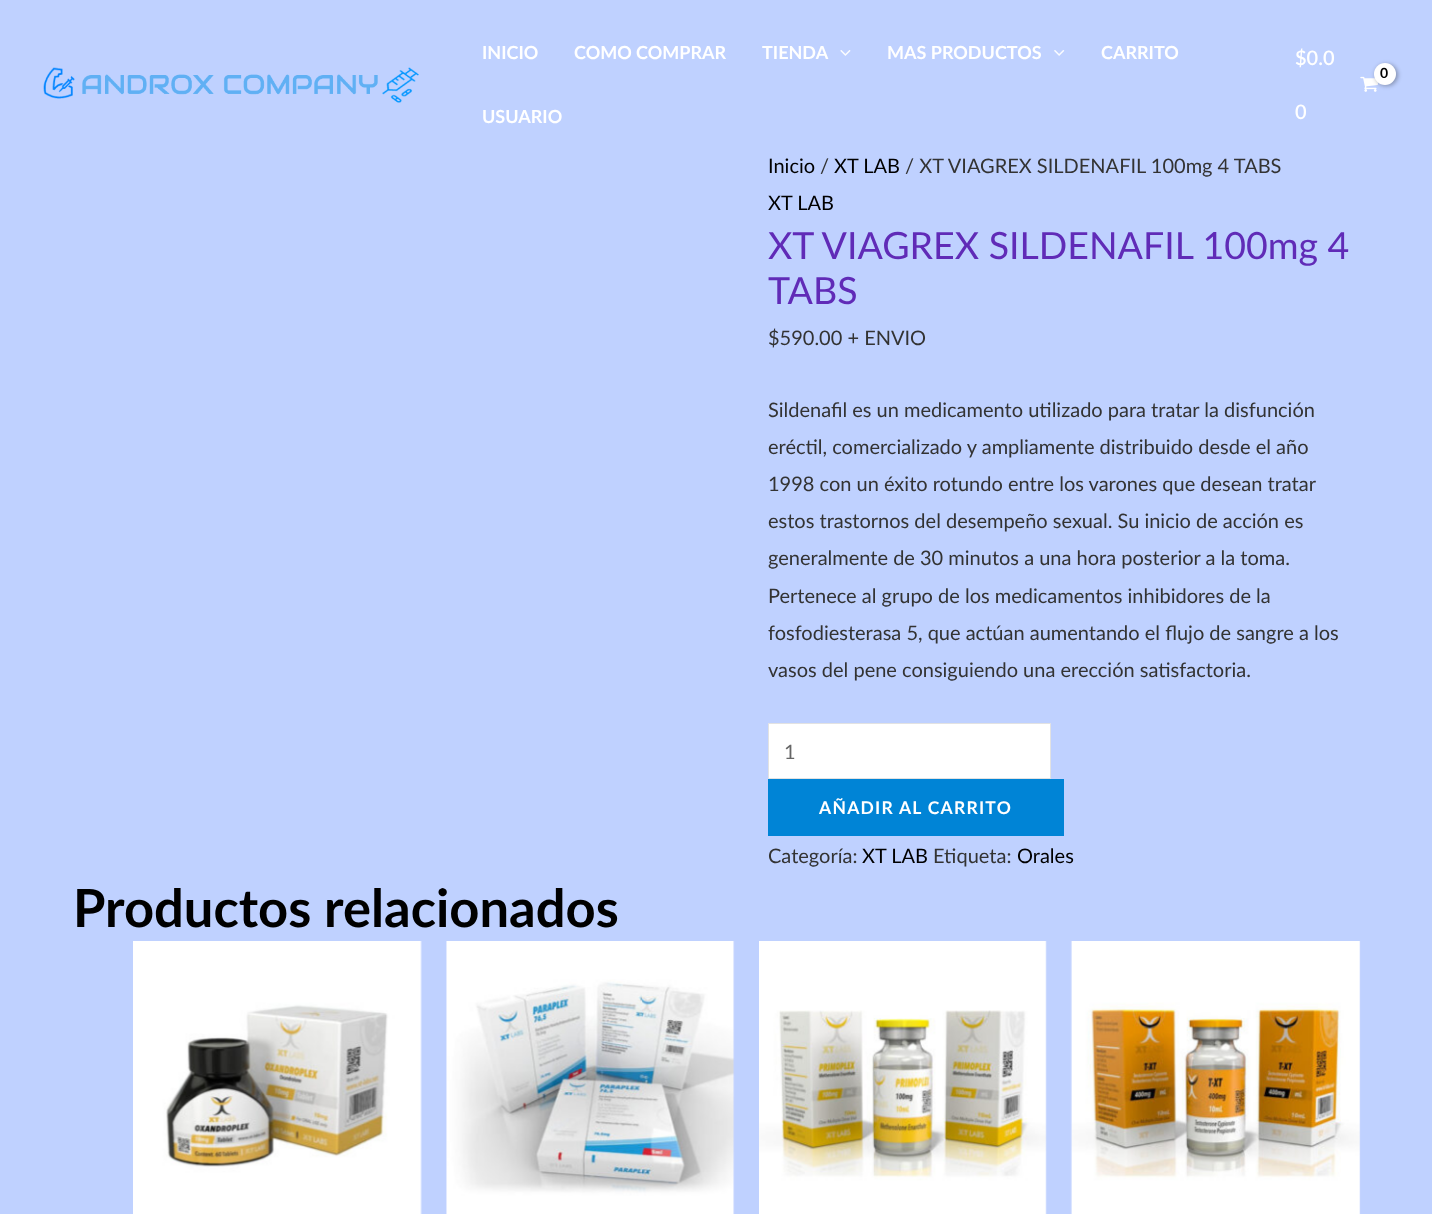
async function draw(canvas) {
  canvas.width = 1432;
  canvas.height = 1214;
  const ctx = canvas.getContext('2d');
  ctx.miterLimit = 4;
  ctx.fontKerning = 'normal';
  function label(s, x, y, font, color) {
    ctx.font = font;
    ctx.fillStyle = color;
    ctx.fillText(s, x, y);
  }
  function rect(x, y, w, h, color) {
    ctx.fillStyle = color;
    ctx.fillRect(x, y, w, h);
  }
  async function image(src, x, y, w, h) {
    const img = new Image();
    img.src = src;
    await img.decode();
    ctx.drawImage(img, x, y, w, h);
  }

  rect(0, 0, 1432, 1214, '#bfd1ff');
  await image('assets/img1.png', 43, 67, 376, 36);
  label('INICIO', 482, 59, 'bold 18px Lato', '#fff');
  label('COMO COMPRAR', 574, 59, 'bold 18px Lato', '#fff');
  label('TIENDA', 762, 59, 'bold 18px Lato', '#fff');
  await image('assets/img2.png', 840, 50, 11, 6);
  label('MAS PRODUCTOS', 887, 59, 'bold 18px Lato', '#fff');
  await image('assets/img3.png', 1054, 50, 11, 6);
  label('CARRITO', 1101, 59, 'bold 18px Lato', '#fff');
  label('USUARIO', 482, 123, 'bold 18px Lato', '#fff');
  label('$0.0', 1295, 65, '600 20px Lato', '#fff');
  label('0', 1295, 119, '600 20px Lato', '#fff');
  await image('assets/img4.png', 1360, 76, 18, 16);
  ctx.fillStyle = '#0000004d';
  ctx.filter = 'blur(2px)';
  ctx.beginPath();
  ctx.roundRect(1375, 64, 23, 22, 11);
  ctx.fill();
  ctx.filter = 'none';
  ctx.fillStyle = '#fff';
  ctx.beginPath();
  ctx.arc(1385, 74, 11, 0, 2 * Math.PI);
  ctx.fill();
  ctx.letterSpacing = '-1px';
  label('0', 1380, 78, 'bold 14px Lato', '#000');
  ctx.letterSpacing = '0px';
  label('Inicio', 768, 173, '20px Lato', '#000');
  label('/', 820, 173, '20px Lato', '#333');
  label('XT LAB', 834, 173, '20px Lato', '#000');
  label('/ XT VIAGREX SILDENAFIL 100mg 4 TABS', 905, 173, '20px Lato', '#333');
  label('XT LAB', 768, 210, '20px Lato', '#000');
  label('XT VIAGREX SILDENAFIL 100mg 4', 768, 259, '37.5px Lato', '#602bb7');
  label('TABS', 768, 304, '37.5px Lato', '#602bb7');
  label('$590.00 + ENVIO', 768, 345, '20px Lato', '#333');
  label('Sildenafil es un medicamento utilizado para tratar la disfunción', 768, 417, '20px Lato', '#333');
  label('eréctil, comercializado y ampliamente distribuido desde el año', 768, 454, '20px Lato', '#333');
  label('1998 con un éxito rotundo entre los varones que desean tratar', 768, 491, '20px Lato', '#333');
  label('estos trastornos del desempeño sexual. Su inicio de acción es', 768, 528, '20px Lato', '#333');
  label('generalmente de 30 minutos a una hora posterior a la toma.', 768, 565, '20px Lato', '#333');
  label('Pertenece al grupo de los medicamentos inhibidores de la', 768, 603, '20px Lato', '#333');
  label('fosfodiesterasa 5, que actúan aumentando el flujo de sangre a los', 768, 640, '20px Lato', '#333');
  label('vasos del pene consiguiendo una erección satisfactoria.', 768, 677, '20px Lato', '#333');
  ctx.fillStyle = '#fff';
  ctx.beginPath();
  ctx.rect(768.5, 723.5, 282, 55);
  ctx.fill();
  ctx.strokeStyle = '#e2e2e2';
  ctx.stroke();
  label('1', 784, 759, '20px Lato', '#666');
  rect(768, 779, 296, 57, '#0084d6');
  ctx.letterSpacing = '1.25px';
  label('AÑADIR AL CARRITO', 819, 814, 'bold 17.5px Lato', '#fff');
  ctx.letterSpacing = '0px';
  label('Categoría:', 768, 863, '20px Lato', '#333');
  label('XT LAB', 862, 863, '20px Lato', '#000');
  label('Etiqueta:', 933, 863, '20px Lato', '#333');
  label('Orales', 1017, 863, '20px Lato', '#000');
  label('Productos relacionados', 73, 927, 'bold 52.5px Lato', '#000');
  await image('assets/img5.png', 133, 941, 289, 273);
  await image('assets/img6.png', 446, 941, 289, 273);
  await image('assets/img7.png', 759, 941, 288, 273);
  await image('assets/img8.png', 1070, 941, 291, 273);
}

draw(document.querySelector('canvas'));
